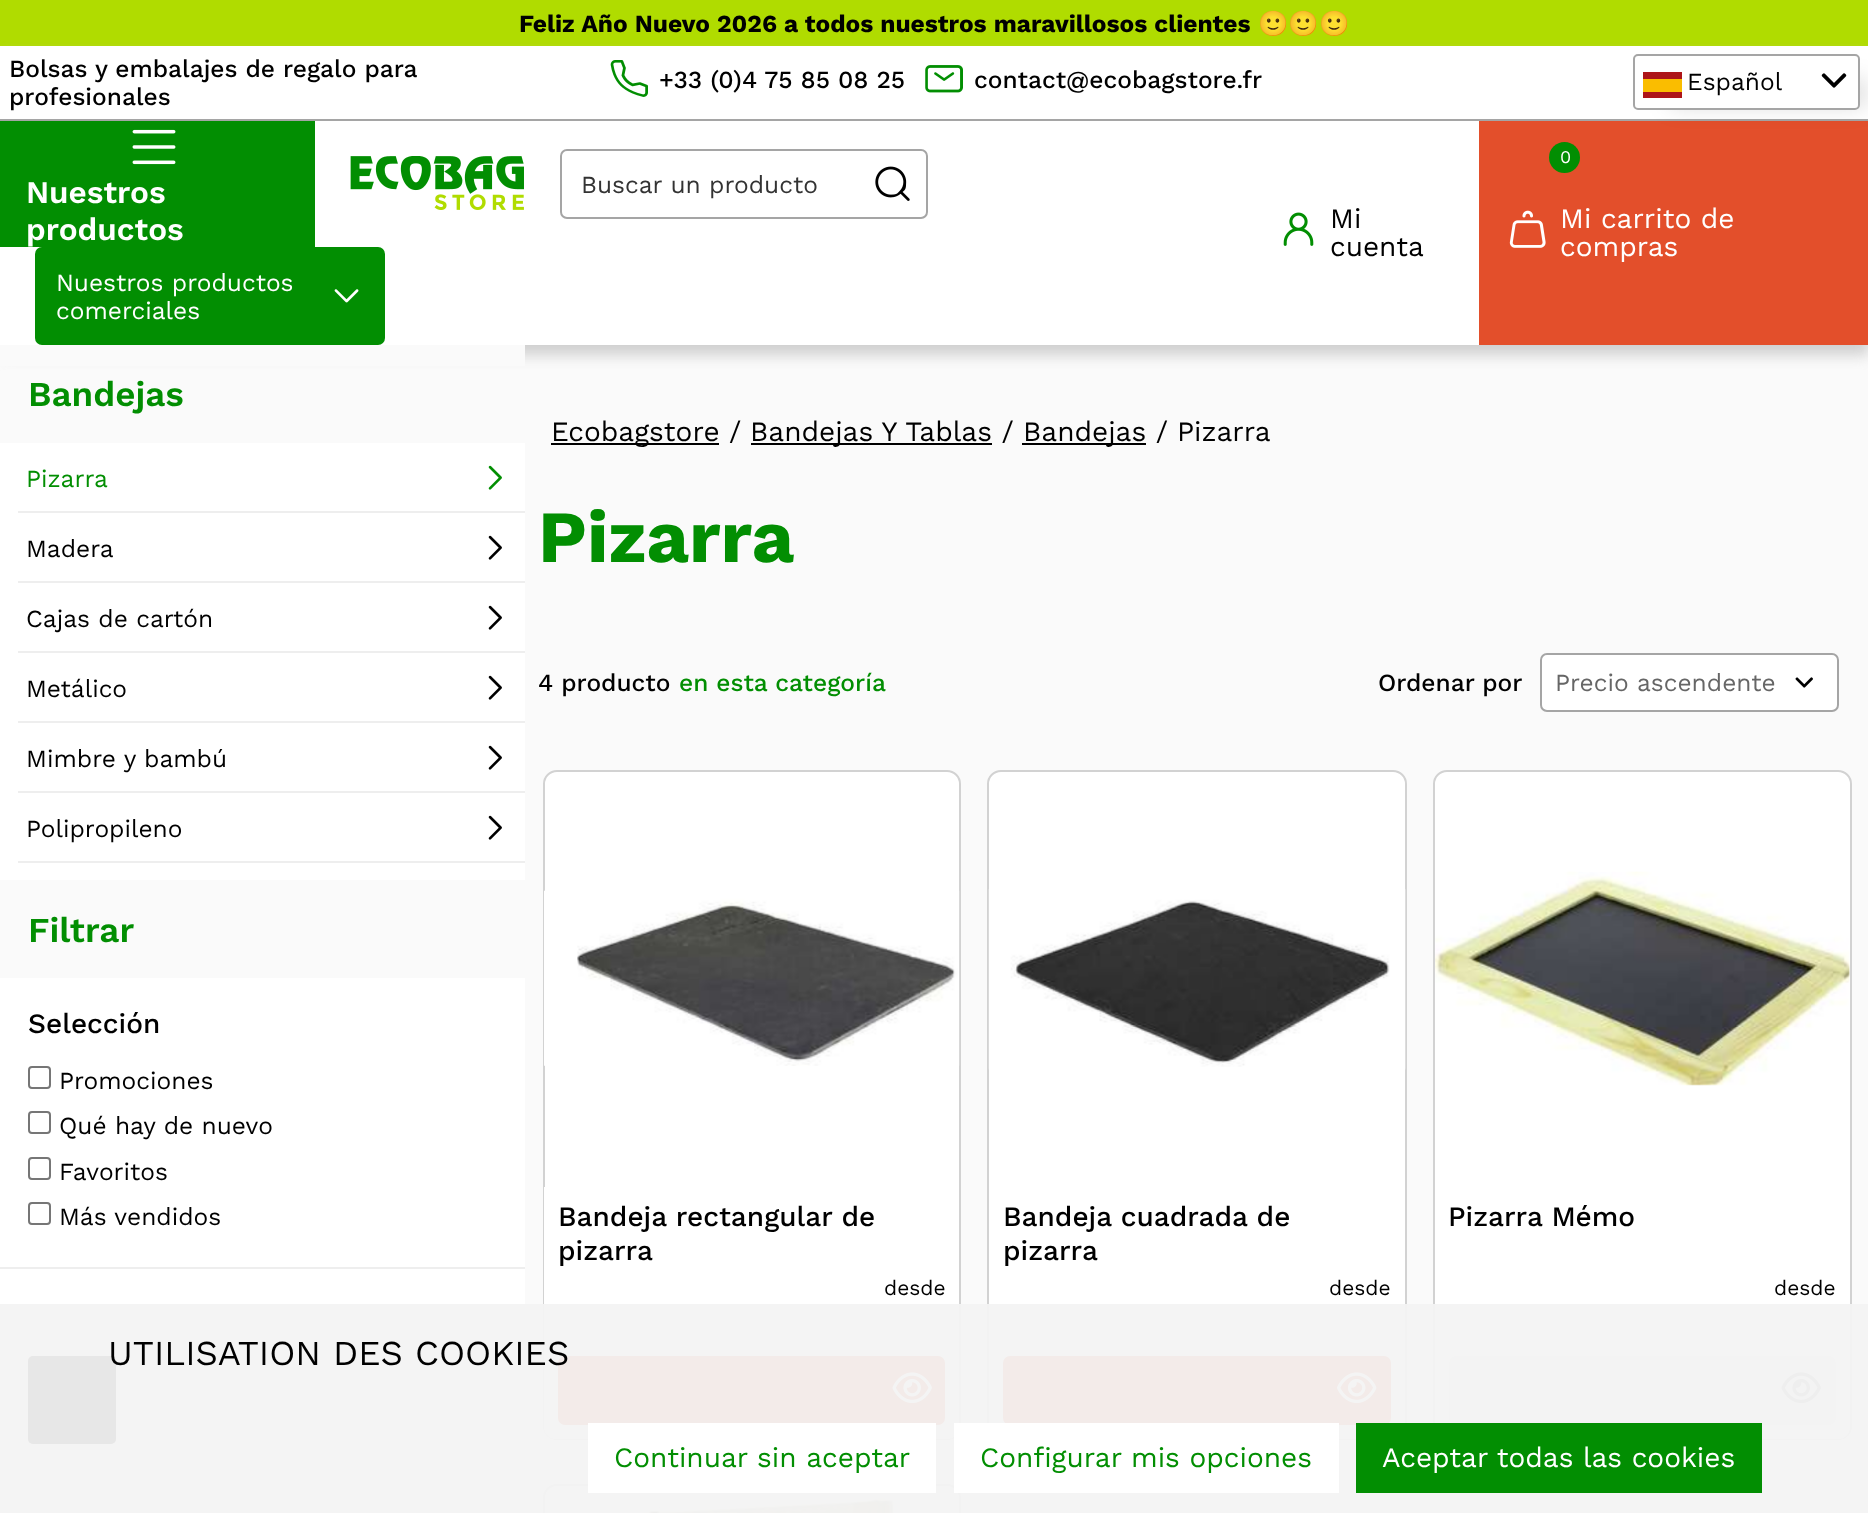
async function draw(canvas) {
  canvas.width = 1868;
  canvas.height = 1513;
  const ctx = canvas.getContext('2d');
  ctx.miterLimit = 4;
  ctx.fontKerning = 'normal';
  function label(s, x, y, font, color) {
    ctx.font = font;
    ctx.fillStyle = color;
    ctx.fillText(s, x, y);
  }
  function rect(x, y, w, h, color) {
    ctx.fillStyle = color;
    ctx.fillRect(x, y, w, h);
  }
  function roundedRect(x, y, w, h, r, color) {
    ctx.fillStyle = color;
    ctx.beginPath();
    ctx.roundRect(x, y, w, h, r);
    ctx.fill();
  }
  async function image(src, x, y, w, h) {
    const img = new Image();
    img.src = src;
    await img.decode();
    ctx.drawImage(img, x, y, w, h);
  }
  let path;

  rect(0, 0, 1868, 1513, '#fafafa');
  rect(0, 0, 1868, 46, '#b0dc00');
  label('Feliz Año Nuevo 2026 a todos nuestros maravillosos clientes', 519, 32, 'bold 24.5px Work Sans', '#000');
  label('🙂🙂🙂', 1258, 32, 'bold 24.5px Noto Color Emoji', '#000');
  ctx.fillStyle = '#cfcfcf';
  ctx.filter = 'blur(7px)';
  ctx.beginPath();
  ctx.rect(0, 56, 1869, 299);
  ctx.fill();
  ctx.filter = 'none';
  rect(0, 46, 1868, 299, '#fff');
  rect(0, 119, 1868, 2, '#a5a5a5');
  label('Bolsas y embalajes de regalo para', 9, 77, '500 24.5px Work Sans', '#000');
  label('profesionales', 9, 105, '500 24.5px Work Sans', '#000');
  await image('assets/img1.png', 610, 60, 38, 37);
  label('+33 (0)4 75 85 08 25', 659, 88, '500 24.5px Work Sans', '#000');
  await image('assets/img2.png', 925, 65, 38, 28);
  label('contact@ecobagstore.fr', 974, 88, '500 24.5px Work Sans', '#000');
  rect(1479, 121, 389, 224, '#e34f2b');
  ctx.save();
  path = new Path2D('M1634 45H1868V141H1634ZM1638 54H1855C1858 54 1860 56 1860 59V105C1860 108 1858 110 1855 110H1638C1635 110 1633 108 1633 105V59C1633 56 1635 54 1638 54Z');
  ctx.clip(path, 'evenodd');
  ctx.fillStyle = '#00000029';
  ctx.filter = 'blur(11.5px)';
  ctx.beginPath();
  ctx.rect(1670, 81, 196, 24);
  ctx.fill();
  ctx.filter = 'none';
  ctx.restore();
  ctx.beginPath();
  ctx.roundRect(1634, 55, 225, 54, 4);
  ctx.strokeStyle = '#a5a5a5';
  ctx.lineWidth = 2;
  ctx.stroke();
  rect(1643, 72, 39, 26, '#ad1519');
  rect(1643, 79, 39, 13, '#fabd00');
  label('Español', 1687, 90, '24.5px Work Sans', '#000');
  await image('assets/img3.png', 1821, 73, 26, 15);
  rect(0, 121, 315, 126, '#028e02');
  await image('assets/img4.png', 132, 129, 44, 36);
  label('Nuestros', 26, 203, '600 31.5px Work Sans', '#fff');
  label('productos', 26, 240, '600 31.5px Work Sans', '#fff');
  await image('assets/img5.png', 350, 156, 174, 54);
  ctx.beginPath();
  ctx.roundRect(561, 150, 366, 68, 6);
  ctx.stroke();
  label('Buscar un producto', 581, 193, '24.5px Work Sans', '#333');
  await image('assets/img6.png', 875, 166, 35, 35);
  roundedRect(35, 247, 350, 98, 7, '#028e02');
  label('Nuestros productos', 56, 291, '24.5px Work Sans', '#fff');
  await image('assets/img7.png', 334, 289, 25, 14);
  label('comerciales', 56, 319, '24.5px Work Sans', '#fff');
  await image('assets/img8.png', 1283, 212, 31, 34);
  label('Mi', 1330, 228, '28px Work Sans', '#000');
  label('cuenta', 1330, 256, '28px Work Sans', '#000');
  ctx.fillStyle = '#028e02';
  ctx.beginPath();
  ctx.arc(1564.5, 157.5, 15.5, 0, 2 * Math.PI);
  ctx.fill();
  label('0', 1560, 163, '18px Work Sans', '#fff');
  await image('assets/img9.png', 1509, 210, 37, 38);
  label('Mi carrito de', 1560, 228, '28px Work Sans', '#fff');
  label('compras', 1560, 256, '28px Work Sans', '#fff');
  rect(0, 443, 525, 1070, '#fff');
  rect(0, 345, 525, 21, '#fafafa');
  label('Bandejas', 28, 406, '600 35px Work Sans', '#028e02');
  rect(18, 511, 507, 2, '#eee');
  label('Pizarra', 26, 487, '24.5px Work Sans', '#028e02');
  await image('assets/img10.png', 488, 465, 14, 25);
  rect(18, 581, 507, 2, '#eee');
  label('Madera', 26, 557, '24.5px Work Sans', '#000');
  await image('assets/img11.png', 488, 535, 14, 25);
  rect(18, 651, 507, 2, '#eee');
  label('Cajas de cartón', 26, 627, '24.5px Work Sans', '#000');
  await image('assets/img11.png', 488, 605, 14, 25);
  rect(18, 721, 507, 2, '#eee');
  label('Metálico', 26, 697, '24.5px Work Sans', '#000');
  await image('assets/img11.png', 488, 675, 14, 25);
  rect(18, 791, 507, 2, '#eee');
  label('Mimbre y bambú', 26, 767, '24.5px Work Sans', '#000');
  await image('assets/img11.png', 488, 745, 14, 25);
  rect(18, 861, 507, 2, '#eee');
  label('Polipropileno', 26, 837, '24.5px Work Sans', '#000');
  await image('assets/img11.png', 488, 815, 14, 25);
  rect(0, 880, 525, 98, '#fafafa');
  label('Filtrar', 28, 942, '600 35px Work Sans', '#028e02');
  rect(0, 1267, 525, 2, '#eee');
  label('Selección', 28, 1033, '500 28px Work Sans', '#000');
  ctx.beginPath();
  ctx.roundRect(29, 1067, 21, 21, 3);
  ctx.strokeStyle = '#767676';
  ctx.stroke();
  label('Promociones', 59, 1089, '24.5px Work Sans', '#000');
  ctx.beginPath();
  ctx.roundRect(29, 1112, 21, 21, 3);
  ctx.stroke();
  label('Qué hay de nuevo', 59, 1134, '24.5px Work Sans', '#000');
  ctx.beginPath();
  ctx.roundRect(29, 1158, 21, 21, 3);
  ctx.stroke();
  label('Favoritos', 59, 1180, '24.5px Work Sans', '#000');
  ctx.beginPath();
  ctx.roundRect(29, 1203, 21, 21, 3);
  ctx.stroke();
  label('Más vendidos', 59, 1225, '24.5px Work Sans', '#000');
  rect(0, 1481, 525, 2, '#eee');
  roundedRect(28, 1356, 88, 88, 5, '#000');
  ctx.beginPath();
  ctx.roundRect(29, 1357, 86, 86, 4);
  ctx.strokeStyle = '#00000026';
  ctx.stroke();
  rect(551, 443, 168, 2, '#000');
  label('Ecobagstore /', 551, 441, '28px Work Sans', '#000');
  rect(751, 443, 241, 2, '#000');
  label('Bandejas Y Tablas /', 750, 441, '28px Work Sans', '#000');
  rect(1022, 443, 124, 2, '#000');
  label('Bandejas /', 1023, 441, '28px Work Sans', '#000');
  label('Pizarra', 1177, 441, '28px Work Sans', '#000');
  label('Pizarra', 538, 562, 'bold 73.5px Work Sans', '#028e02');
  label('4 producto', 538, 691, '500 24.5px Work Sans', '#000');
  label('en esta categoría', 679, 691, '500 24.5px Work Sans', '#028e02');
  label('Ordenar por', 1378, 691, '500 24.5px Work Sans', '#000');
  ctx.fillStyle = '#fff';
  ctx.beginPath();
  ctx.roundRect(1541, 654, 297, 57, 6);
  ctx.fill();
  ctx.strokeStyle = '#a5a5a5';
  ctx.stroke();
  label('Precio ascendente', 1555, 691, '24.5px Work Sans', '#666');
  await image('assets/img12.png', 1795, 677, 18, 11);
  ctx.fillStyle = '#fff';
  ctx.beginPath();
  ctx.roundRect(544, 771, 416, 668, 13);
  ctx.fill();
  ctx.strokeStyle = '#d2d2d2';
  ctx.stroke();
  await image('assets/img13.png', 544, 890, 416, 176);
  ctx.beginPath();
  ctx.roundRect(544, 1187, 415, 252, [0, 0, 12, 12]);
  ctx.fill();
  label('Bandeja rectangular de', 558, 1226, '500 28px Work Sans', '#000');
  label('pizarra', 558, 1260, '500 28px Work Sans', '#000');
  label('desde', 884, 1295, '21px Work Sans', '#000');
  roundedRect(558, 1356, 387, 69, 7, '#e34f2b');
  await image('assets/img14.png', 892, 1372, 40, 32);
  ctx.fillStyle = '#fff';
  ctx.beginPath();
  ctx.roundRect(988, 771, 418, 668, 13);
  ctx.fill();
  ctx.stroke();
  await image('assets/img15.png', 988, 889, 418, 181);
  rect(989, 1427, 416, 12, '#fff');
  label('Bandeja cuadrada de', 1003, 1226, '500 28px Work Sans', '#000');
  label('pizarra', 1003, 1260, '500 28px Work Sans', '#000');
  label('desde', 1329, 1295, '21px Work Sans', '#000');
  roundedRect(1003, 1356, 388, 69, 7, '#e34f2b');
  await image('assets/img16.png', 1337, 1372, 40, 32);
  ctx.fillStyle = '#fff';
  ctx.beginPath();
  ctx.roundRect(1434, 771, 417, 668, 13);
  ctx.fill();
  ctx.stroke();
  await image('assets/img17.png', 1435, 871, 415, 215);
  ctx.beginPath();
  ctx.roundRect(1435, 1187, 415, 252, [0, 0, 12, 12]);
  ctx.fill();
  label('Pizarra Mémo', 1448, 1226, '500 28px Work Sans', '#000');
  label('desde', 1774, 1295, '21px Work Sans', '#000');
  roundedRect(1449, 1356, 387, 69, 7, '#e6e6e6');
  await image('assets/img18.png', 1781, 1372, 40, 32);
  ctx.fillStyle = '#fff';
  ctx.beginPath();
  ctx.roundRect(544, 1485, 416, 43, 13);
  ctx.fill();
  ctx.stroke();
  await image('assets/img19.png', 633, 1493, 264, 20);
  rect(0, 1304, 1868, 209, '#f3f3f3f2');
  label('UTILISATION DES COOKIES', 108, 1365, '35px Work Sans', '#000');
  rect(588, 1423, 348, 70, '#fff');
  label('Continuar sin aceptar', 614, 1467, '28px Work Sans', '#028e02');
  rect(954, 1423, 385, 70, '#fff');
  label('Configurar mis opciones', 980, 1467, '28px Work Sans', '#028e02');
  rect(1356, 1423, 406, 70, '#028e02');
  label('Aceptar todas las cookies', 1382, 1467, '28px Work Sans', '#fff');
}

draw(document.querySelector('canvas'));
